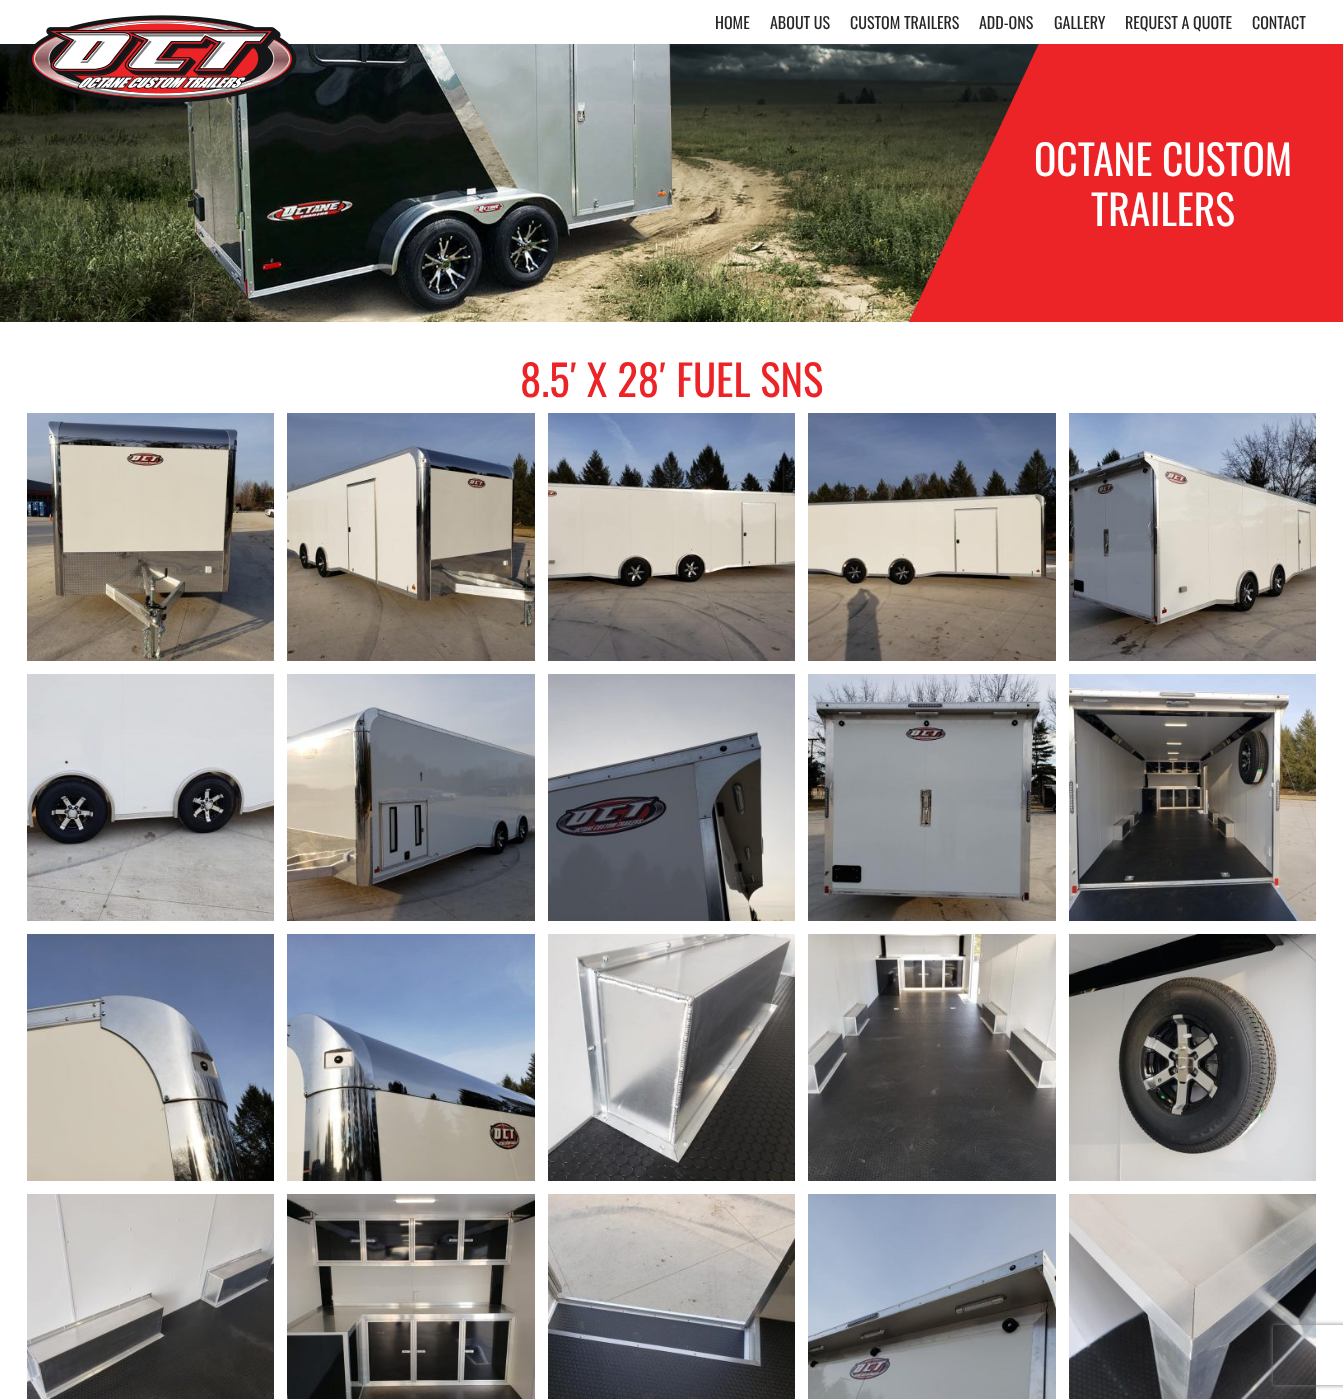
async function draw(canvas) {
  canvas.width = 1343;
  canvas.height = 1399;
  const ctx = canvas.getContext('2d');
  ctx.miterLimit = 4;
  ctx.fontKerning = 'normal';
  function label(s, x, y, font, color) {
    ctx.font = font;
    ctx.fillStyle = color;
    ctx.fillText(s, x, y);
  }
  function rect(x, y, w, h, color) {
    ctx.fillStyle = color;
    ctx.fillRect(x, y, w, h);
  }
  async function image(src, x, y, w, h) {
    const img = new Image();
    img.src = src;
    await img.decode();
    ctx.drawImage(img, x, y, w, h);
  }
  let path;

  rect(0, 0, 1343, 1399, '#fff');
  await image('assets/img2.png', 0, 44, 1039, 278);
  await image('assets/img1.png', 27, 15, 270, 88);
  label('HOME', 715, 29, '16px Oswald', '#272727');
  label('ABOUT US', 770, 29, '16px Oswald', '#272727');
  label('CUSTOM TRAILERS', 850, 29, '16px Oswald', '#272727');
  label('ADD-ONS', 979, 29, '16px Oswald', '#272727');
  label('GALLERY', 1054, 29, '16px Oswald', '#272727');
  label('REQUEST A QUOTE', 1125, 29, '16px Oswald', '#272727');
  label('CONTACT', 1252, 29, '16px Oswald', '#272727');
  ctx.save();
  ctx.beginPath();
  ctx.rect(909, 44, 434, 278);
  ctx.clip();
  ctx.fillStyle = '#ec2327';
  path = new Path2D('M1134-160L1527 23L1292 526L899 343Z');
  ctx.fill(path);
  ctx.restore();
  label('OCTANE CUSTOM', 1034, 176, '41.5px Oswald', '#fff');
  label('TRAILERS', 1091, 226, '41.5px Oswald', '#fff');
  label('8.5′ X 28′ FUEL SNS', 520, 397, '42.75px Oswald', '#ec2327');
  await image('assets/img3.png', 27, 413, 247, 248);
  await image('assets/img4.png', 287, 413, 248, 248);
  await image('assets/img5.png', 548, 413, 247, 248);
  await image('assets/img6.png', 808, 413, 248, 248);
  await image('assets/img7.png', 1069, 413, 247, 248);
  await image('assets/img8.png', 27, 674, 247, 247);
  await image('assets/img9.png', 287, 674, 248, 247);
  await image('assets/img10.png', 548, 674, 247, 247);
  await image('assets/img11.png', 808, 674, 248, 247);
  await image('assets/img12.png', 1069, 674, 247, 247);
  await image('assets/img13.png', 27, 934, 247, 247);
  await image('assets/img14.png', 287, 934, 248, 247);
  await image('assets/img15.png', 548, 934, 247, 247);
  await image('assets/img16.png', 808, 934, 248, 247);
  await image('assets/img17.png', 1069, 934, 247, 247);
  await image('assets/img18.png', 27, 1194, 247, 205);
  await image('assets/img19.png', 287, 1194, 248, 205);
  await image('assets/img20.png', 548, 1194, 247, 205);
  await image('assets/img21.png', 808, 1194, 248, 205);
  await image('assets/img22.png', 1069, 1194, 247, 205);
  ctx.save();
  path = new Path2D('M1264 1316H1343V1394H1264ZM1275 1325H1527C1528 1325 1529 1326 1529 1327V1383C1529 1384 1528 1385 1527 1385H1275C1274 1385 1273 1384 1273 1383V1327C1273 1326 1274 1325 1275 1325Z');
  ctx.clip(path, 'evenodd');
  ctx.fillStyle = '#808080';
  ctx.filter = 'blur(2.5px)';
  ctx.beginPath();
  ctx.roundRect(1273, 1325, 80, 60, 2);
  ctx.fill();
  ctx.filter = 'none';
  ctx.restore();
}

draw(document.querySelector('canvas'));
